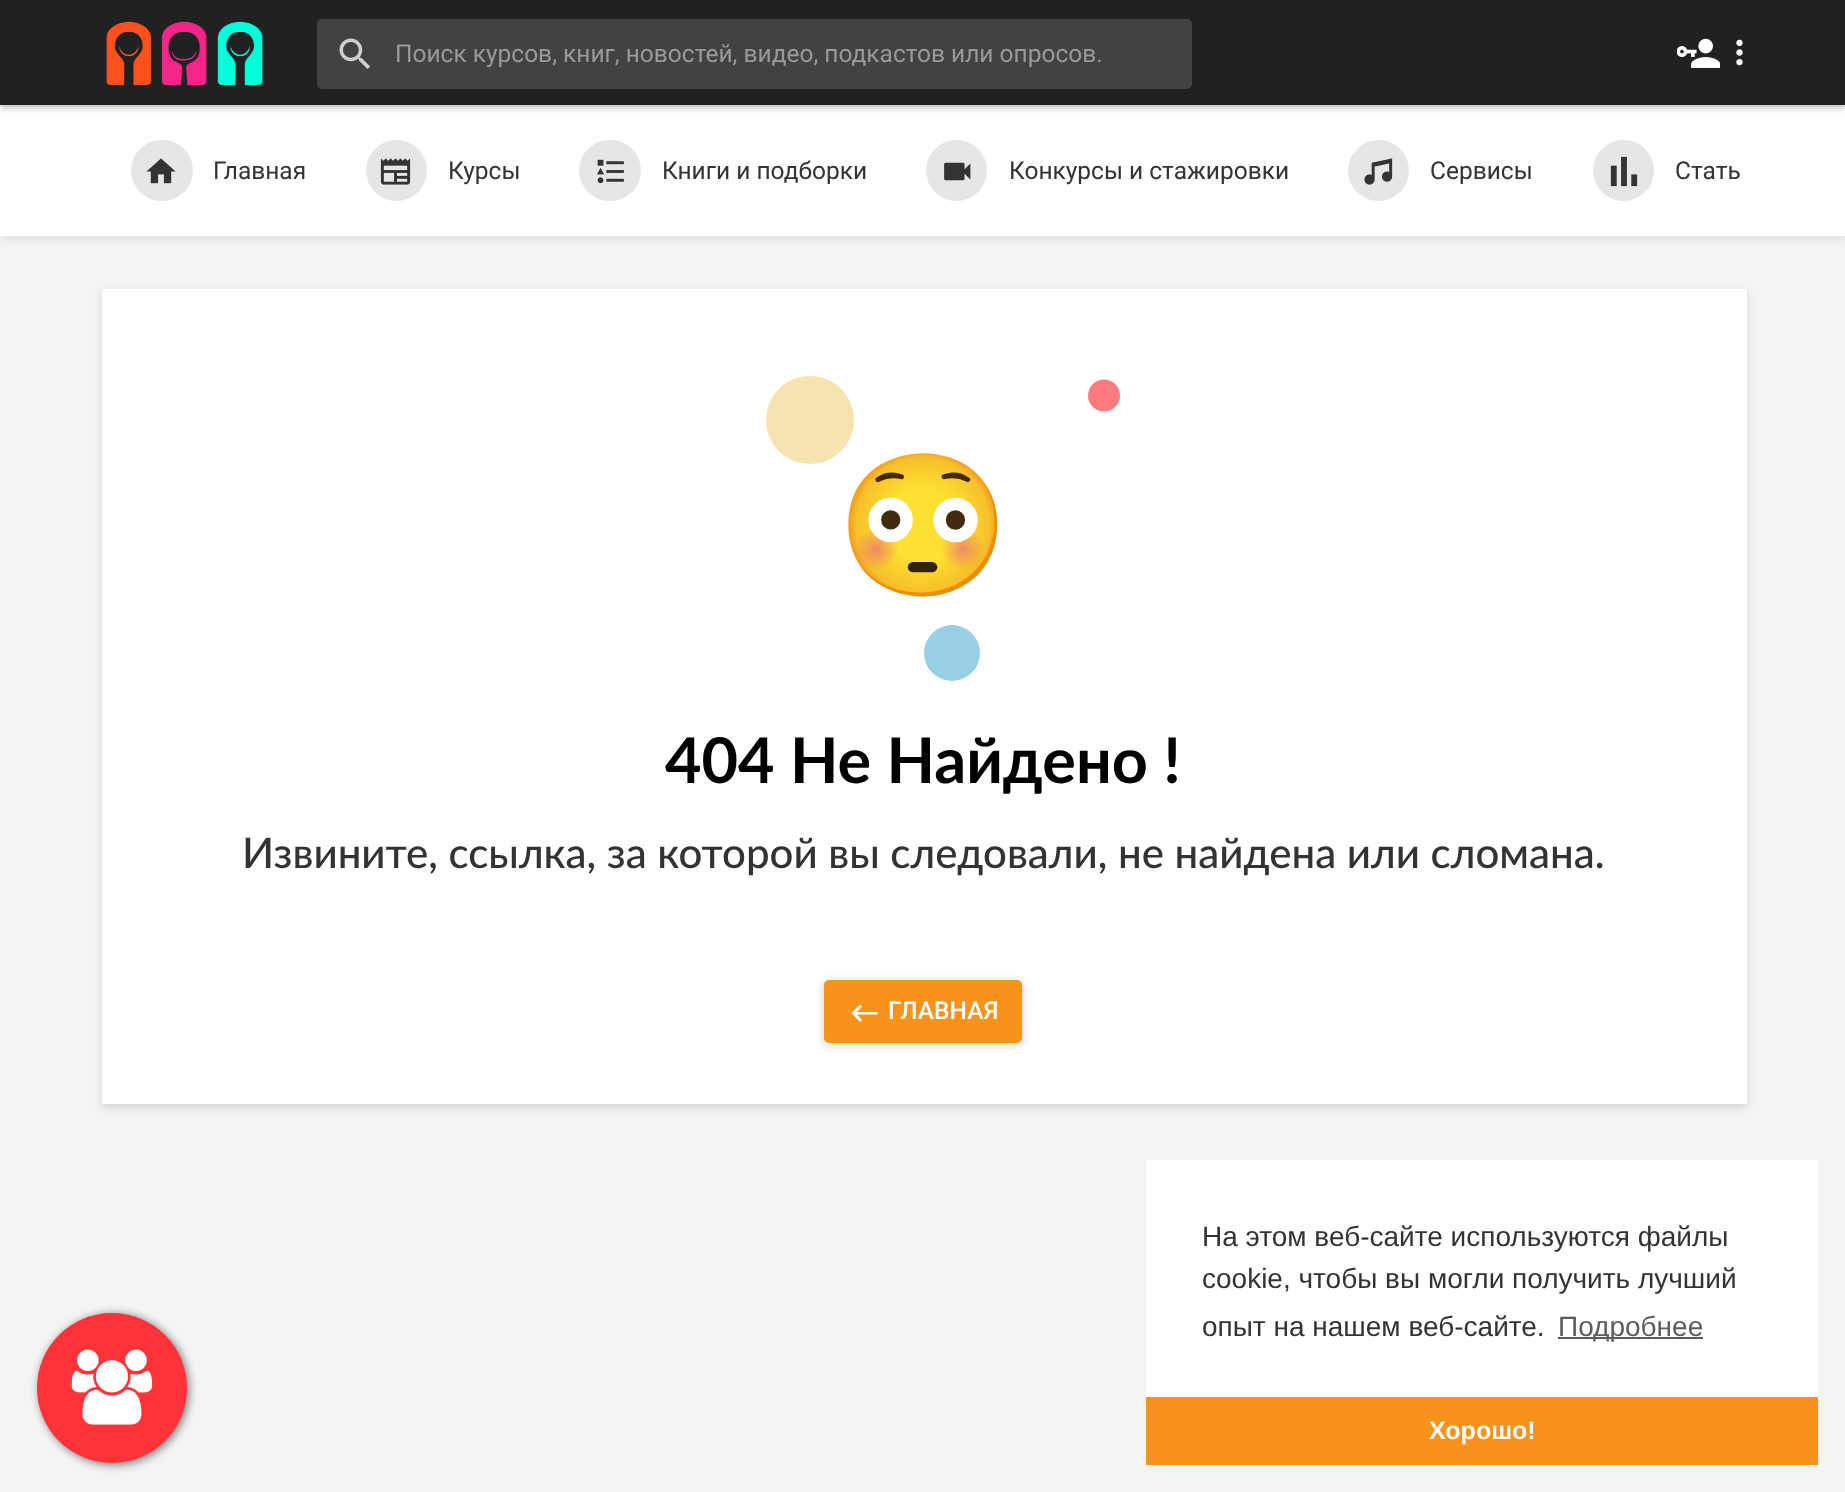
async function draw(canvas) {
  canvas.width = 1845;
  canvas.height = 1492;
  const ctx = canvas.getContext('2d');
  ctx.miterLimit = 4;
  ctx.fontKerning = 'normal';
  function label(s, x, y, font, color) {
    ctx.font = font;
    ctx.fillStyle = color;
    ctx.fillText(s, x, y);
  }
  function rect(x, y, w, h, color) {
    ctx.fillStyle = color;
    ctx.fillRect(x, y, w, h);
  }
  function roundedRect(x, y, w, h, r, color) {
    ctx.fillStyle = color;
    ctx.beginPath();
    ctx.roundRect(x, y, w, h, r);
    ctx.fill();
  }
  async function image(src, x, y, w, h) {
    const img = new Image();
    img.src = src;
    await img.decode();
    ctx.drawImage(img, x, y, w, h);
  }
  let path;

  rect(0, 0, 1845, 1492, '#f4f4f4');
  ctx.fillStyle = '#00000014';
  ctx.filter = 'blur(4.5px)';
  ctx.beginPath();
  ctx.rect(0, 4, 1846, 236);
  ctx.fill();
  ctx.filter = 'none';
  rect(0, 105, 1845, 131, '#fff');
  ctx.fillStyle = '#0000004d';
  ctx.filter = 'blur(3.5px)';
  ctx.beginPath();
  ctx.rect(0, 2, 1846, 105);
  ctx.fill();
  ctx.filter = 'none';
  rect(0, 0, 1845, 105, '#212121');
  await image('assets/img1.png', 106, 21, 157, 65);
  roundedRect(317, 19, 875, 70, 5, '#424242');
  await image('assets/img2.png', 339, 38, 31, 31);
  label('Поиск курсов, книг, новостей, видео, подкастов или опросов.', 395, 62, '24.5px Roboto', '#999');
  await image('assets/img3.png', 1677, 38, 43, 30);
  await image('assets/img4.png', 1736, 39, 7, 27);
  roundedRect(131, 140, 62, 61, 30.5, '#e6e6e6');
  await image('assets/img5.png', 146, 158, 30, 26);
  label('Главная', 213, 179, '24.5px Roboto', '#333');
  ctx.fillStyle = '#e6e6e6';
  ctx.beginPath();
  ctx.arc(396.5, 170.5, 30.5, 0, 2 * Math.PI);
  ctx.fill();
  await image('assets/img6.png', 380, 158, 31, 27);
  label('Курсы', 448, 179, '24.5px Roboto', '#333');
  roundedRect(579, 140, 62, 61, 30.5, '#e6e6e6');
  await image('assets/img7.png', 597, 159, 27, 25);
  label('Книги и подборки', 662, 179, '24.5px Roboto', '#333');
  ctx.fillStyle = '#e6e6e6';
  ctx.beginPath();
  ctx.arc(956.5, 170.5, 30.5, 0, 2 * Math.PI);
  ctx.fill();
  await image('assets/img8.png', 944, 162, 27, 19);
  label('Конкурсы и стажировки', 1009, 179, '24.5px Roboto', '#333');
  ctx.fillStyle = '#e6e6e6';
  ctx.beginPath();
  ctx.arc(1378.5, 170.5, 30.5, 0, 2 * Math.PI);
  ctx.fill();
  await image('assets/img9.png', 1364, 158, 29, 27);
  label('Сервисы', 1430, 179, '24.5px Roboto', '#333');
  ctx.fillStyle = '#e6e6e6';
  ctx.beginPath();
  ctx.arc(1623.5, 170.5, 30.5, 0, 2 * Math.PI);
  ctx.fill();
  await image('assets/img10.png', 1610, 156, 28, 31);
  label('Стать', 1675, 179, '24.5px Roboto', '#333');
  ctx.fillStyle = '#0000001f';
  ctx.filter = 'blur(4.5px)';
  ctx.beginPath();
  ctx.rect(102, 292, 1645, 816);
  ctx.fill();
  ctx.filter = 'none';
  rect(102, 289, 1645, 815, '#fff');
  ctx.fillStyle = '#f6e4ae';
  ctx.beginPath();
  ctx.arc(810, 420, 44, 0, 2 * Math.PI);
  ctx.fill();
  ctx.fillStyle = '#98d0e6';
  ctx.beginPath();
  ctx.arc(952, 653, 28, 0, 2 * Math.PI);
  ctx.fill();
  ctx.fillStyle = '#fd7b7f';
  ctx.beginPath();
  ctx.arc(1104, 395.5, 16, 0, 2 * Math.PI);
  ctx.fill();
  label('😳', 836, 574, '140px Noto Color Emoji', '#333');
  label('404 Не Найдено !', 665, 783, 'bold 63px Lato', '#000');
  label('Извините, ссылка, за которой вы следовали, не найдена или сломана.', 242, 868, '500 42px Lato', '#333');
  ctx.fillStyle = '#00000033';
  ctx.filter = 'blur(5px)';
  ctx.beginPath();
  ctx.roundRect(824, 982, 198, 63, 5);
  ctx.fill();
  ctx.filter = 'none';
  ctx.fillStyle = '#f7931a';
  ctx.beginPath();
  ctx.roundRect(825, 981, 196, 61, 4);
  ctx.fill();
  ctx.strokeStyle = '#f7931a';
  ctx.lineWidth = 2;
  ctx.stroke();
  ctx.fillStyle = '#fff';
  path = new Path2D('M877.5 1012H857L862 1006.5L860 1004.5L851.5 1013L860 1022L862 1020L857 1014.5H877.5Z');
  ctx.fill(path);
  label('ГЛАВНАЯ', 888, 1019, '500 24.5px Roboto', '#fff');
  ctx.fillStyle = '#00000080';
  ctx.filter = 'blur(4.5px)';
  ctx.beginPath();
  ctx.roundRect(39, 1314, 150, 151, 75);
  ctx.fill();
  ctx.filter = 'none';
  ctx.fillStyle = '#ff3338';
  ctx.beginPath();
  ctx.arc(112, 1388, 75, 0, 2 * Math.PI);
  ctx.fill();
  await image('assets/img11.png', 71, 1349, 82, 76);
  rect(1146, 1160, 672, 237, '#fff');
  label('На этом веб-сайте используются файлы', 1202, 1246, '28px Liberation Sans', '#333');
  label('cookie, чтобы вы могли получить лучший', 1202, 1288, '28px Liberation Sans', '#333');
  label('опыт на нашем веб-сайте.', 1202, 1336, '28px Liberation Sans', '#333');
  rect(1558, 1337, 145, 2, '#5c5c5c');
  label('Подробнее', 1558, 1336, '28px Liberation Sans', '#5c5c5c');
  rect(1146, 1397, 672, 68, '#f7931a');
  label('Хорошо!', 1429, 1439, 'bold 25px Liberation Sans', '#fff');
}

draw(document.querySelector('canvas'));
